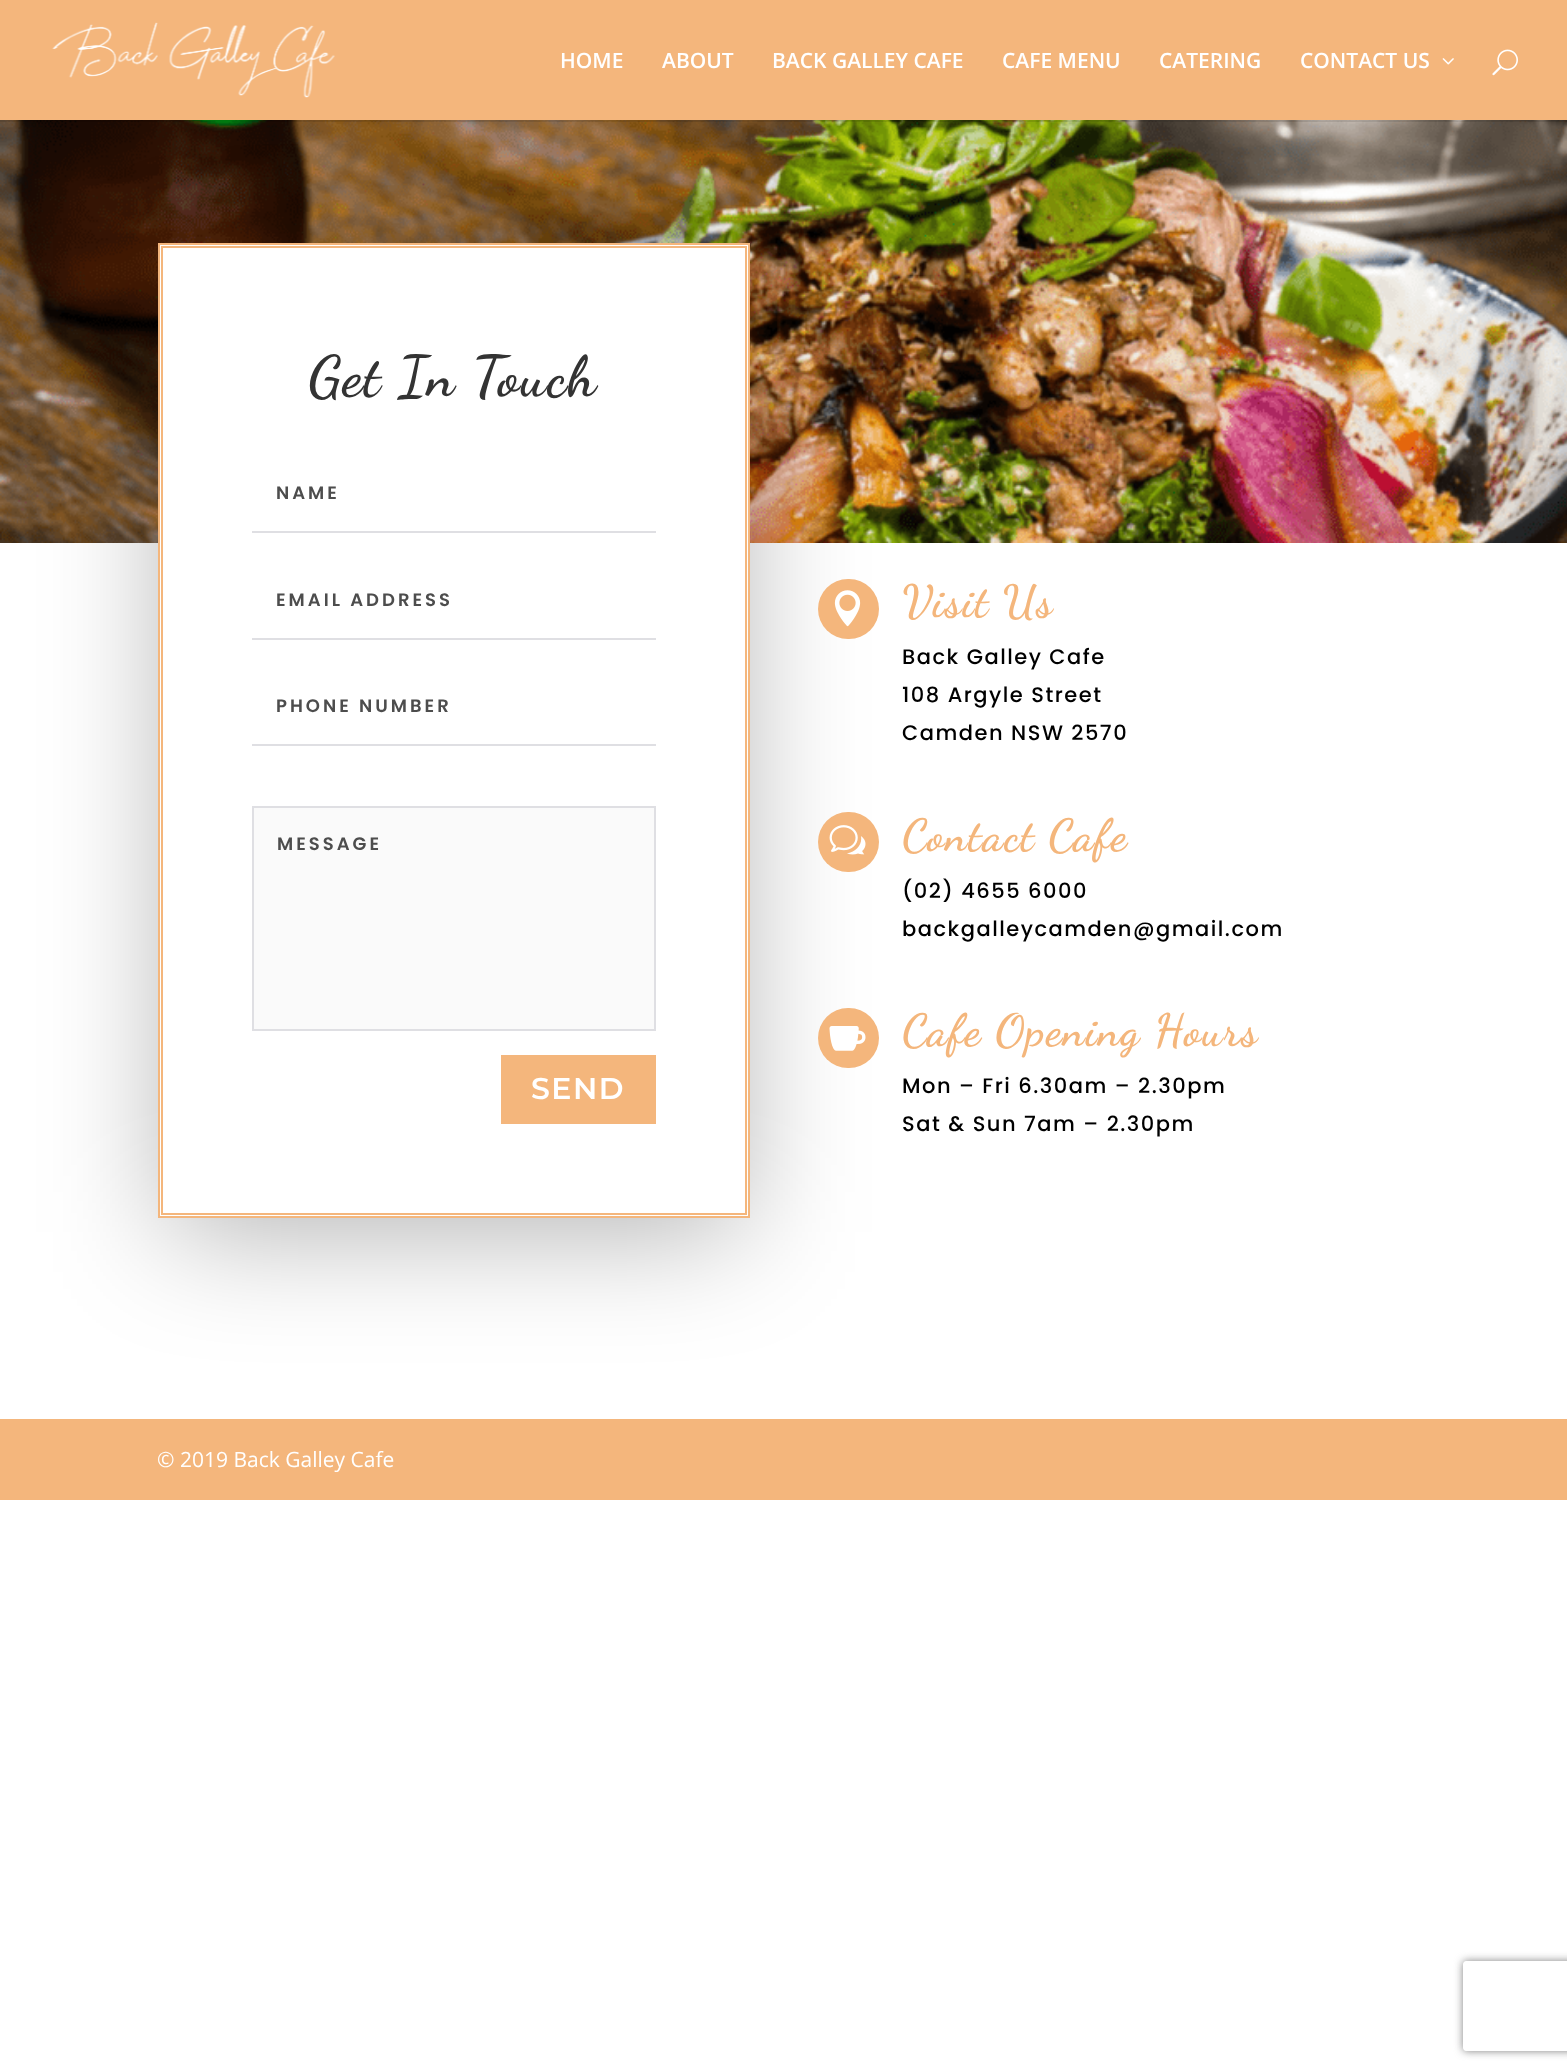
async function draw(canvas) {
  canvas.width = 1567;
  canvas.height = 2071;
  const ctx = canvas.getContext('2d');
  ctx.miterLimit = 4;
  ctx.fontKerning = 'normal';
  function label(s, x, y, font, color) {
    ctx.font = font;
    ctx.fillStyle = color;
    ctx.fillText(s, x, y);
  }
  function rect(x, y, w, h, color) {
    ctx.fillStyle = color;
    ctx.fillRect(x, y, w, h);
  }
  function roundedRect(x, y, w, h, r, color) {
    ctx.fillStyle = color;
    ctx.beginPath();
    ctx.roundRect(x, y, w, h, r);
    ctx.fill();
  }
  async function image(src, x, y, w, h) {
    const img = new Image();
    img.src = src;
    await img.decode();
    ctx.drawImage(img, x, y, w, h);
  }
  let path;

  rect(0, 0, 1567, 2071, '#fff');
  await image('assets/img4.png', 0, 120, 1567, 423);
  ctx.fillStyle = '#0000004d';
  ctx.filter = 'blur(60px)';
  ctx.beginPath();
  ctx.rect(167, 275, 574, 957);
  ctx.fill();
  ctx.filter = 'none';
  ctx.fillStyle = '#0000001a';
  path = new Path2D('M0 120V122H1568V2V120Z');
  ctx.fill(path);
  rect(0, 0, 1567, 120, '#f4b67c');
  await image('assets/img1.png', 52, 22, 283, 76);
  label('HOME', 560, 68, '600 21px Open Sans', '#fff');
  label('ABOUT', 662, 68, '600 21px Open Sans', '#fff');
  label('BACK GALLEY CAFE', 772, 68, '600 21px Open Sans', '#fff');
  label('CAFE MENU', 1002, 68, '600 21px Open Sans', '#fff');
  label('CATERING', 1159, 68, '600 21px Open Sans', '#fff');
  label('CONTACT US', 1300, 68, '600 21px Open Sans', '#fff');
  await image('assets/img2.png', 1442, 58, 12, 7);
  await image('assets/img3.png', 1492, 49, 26, 27);
  ctx.beginPath();
  ctx.rect(159, 244, 590, 973);
  ctx.fill();
  ctx.strokeStyle = '#f4b67c';
  ctx.lineWidth = 2;
  ctx.stroke();
  ctx.strokeRect(162, 247, 584, 967);
  ctx.letterSpacing = '1.5px';
  label('Get In Touch', 308, 395, 'bold 57px Dancing Script', '#333');
  rect(252, 531, 404, 2, '#dfdfe3');
  ctx.letterSpacing = '3px';
  label('NAME', 276, 499, '600 18px Poppins', '#4d4d4d');
  rect(252, 638, 404, 2, '#dfdfe3');
  label('EMAIL ADDRESS', 276, 606, '600 18px Poppins', '#4d4d4d');
  rect(252, 744, 404, 2, '#dfdfe3');
  label('PHONE NUMBER', 276, 712, '600 18px Poppins', '#4d4d4d');
  ctx.fillStyle = '#fafafa';
  ctx.beginPath();
  ctx.rect(253, 807, 402, 223);
  ctx.fill();
  ctx.strokeStyle = '#dfdfe3';
  ctx.stroke();
  label('MESSAGE', 277, 850, '600 18px Poppins', '#4d4d4d');
  rect(501, 1055, 155, 69, '#f4b67c');
  ctx.letterSpacing = '1.5px';
  label('SEND', 531, 1099, '600 30px Montserrat', '#fff');
  roundedRect(818, 579, 61, 60, 30, '#f4b67c');
  await image('assets/img5.png', 834, 590, 27, 37);
  label('Visit Us', 902, 616, 'bold 45px Dancing Script', '#f4b67c');
  label('Back Galley Cafe', 902, 664, '500 21px Poppins', '#000');
  label('108 Argyle Street', 902, 702, '500 21px Poppins', '#000');
  label('Camden NSW 2570', 902, 740, '500 21px Poppins', '#000');
  roundedRect(818, 812, 61, 60, 30, '#f4b67c');
  await image('assets/img6.png', 829, 825, 37, 30);
  label('Contact Cafe', 902, 850, 'bold 45px Dancing Script', '#f4b67c');
  label('(02) 4655 6000', 902, 898, '500 21px Poppins', '#000');
  label('backgalleycamden@gmail.com', 902, 936, '500 21px Poppins', '#000');
  roundedRect(818, 1008, 61, 60, 30, '#f4b67c');
  await image('assets/img7.png', 829, 1026, 37, 25);
  label('Cafe Opening Hours', 902, 1045, 'bold 45px Dancing Script', '#f4b67c');
  label('Mon – Fri 6.30am – 2.30pm', 902, 1093, '500 21px Poppins', '#000');
  label('Sat & Sun 7am – 2.30pm', 902, 1131, '500 21px Poppins', '#000');
  rect(0, 1419, 1567, 81, '#f4b67c');
  ctx.letterSpacing = '0px';
  label('© 2019 Back Galley Cafe', 157, 1467, '21px Open Sans', '#fff');
  ctx.save();
  path = new Path2D('M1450 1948H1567V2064H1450ZM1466 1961H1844C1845.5 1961 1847 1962.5 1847 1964V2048C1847 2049.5 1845.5 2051 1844 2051H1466C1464.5 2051 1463 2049.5 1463 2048V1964C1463 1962.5 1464.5 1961 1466 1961Z');
  ctx.clip(path, 'evenodd');
  ctx.fillStyle = '#808080';
  ctx.filter = 'blur(4px)';
  ctx.beginPath();
  ctx.roundRect(1463, 1961, 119, 90, 3);
  ctx.fill();
  ctx.filter = 'none';
  ctx.restore();
}

draw(document.querySelector('canvas'));
